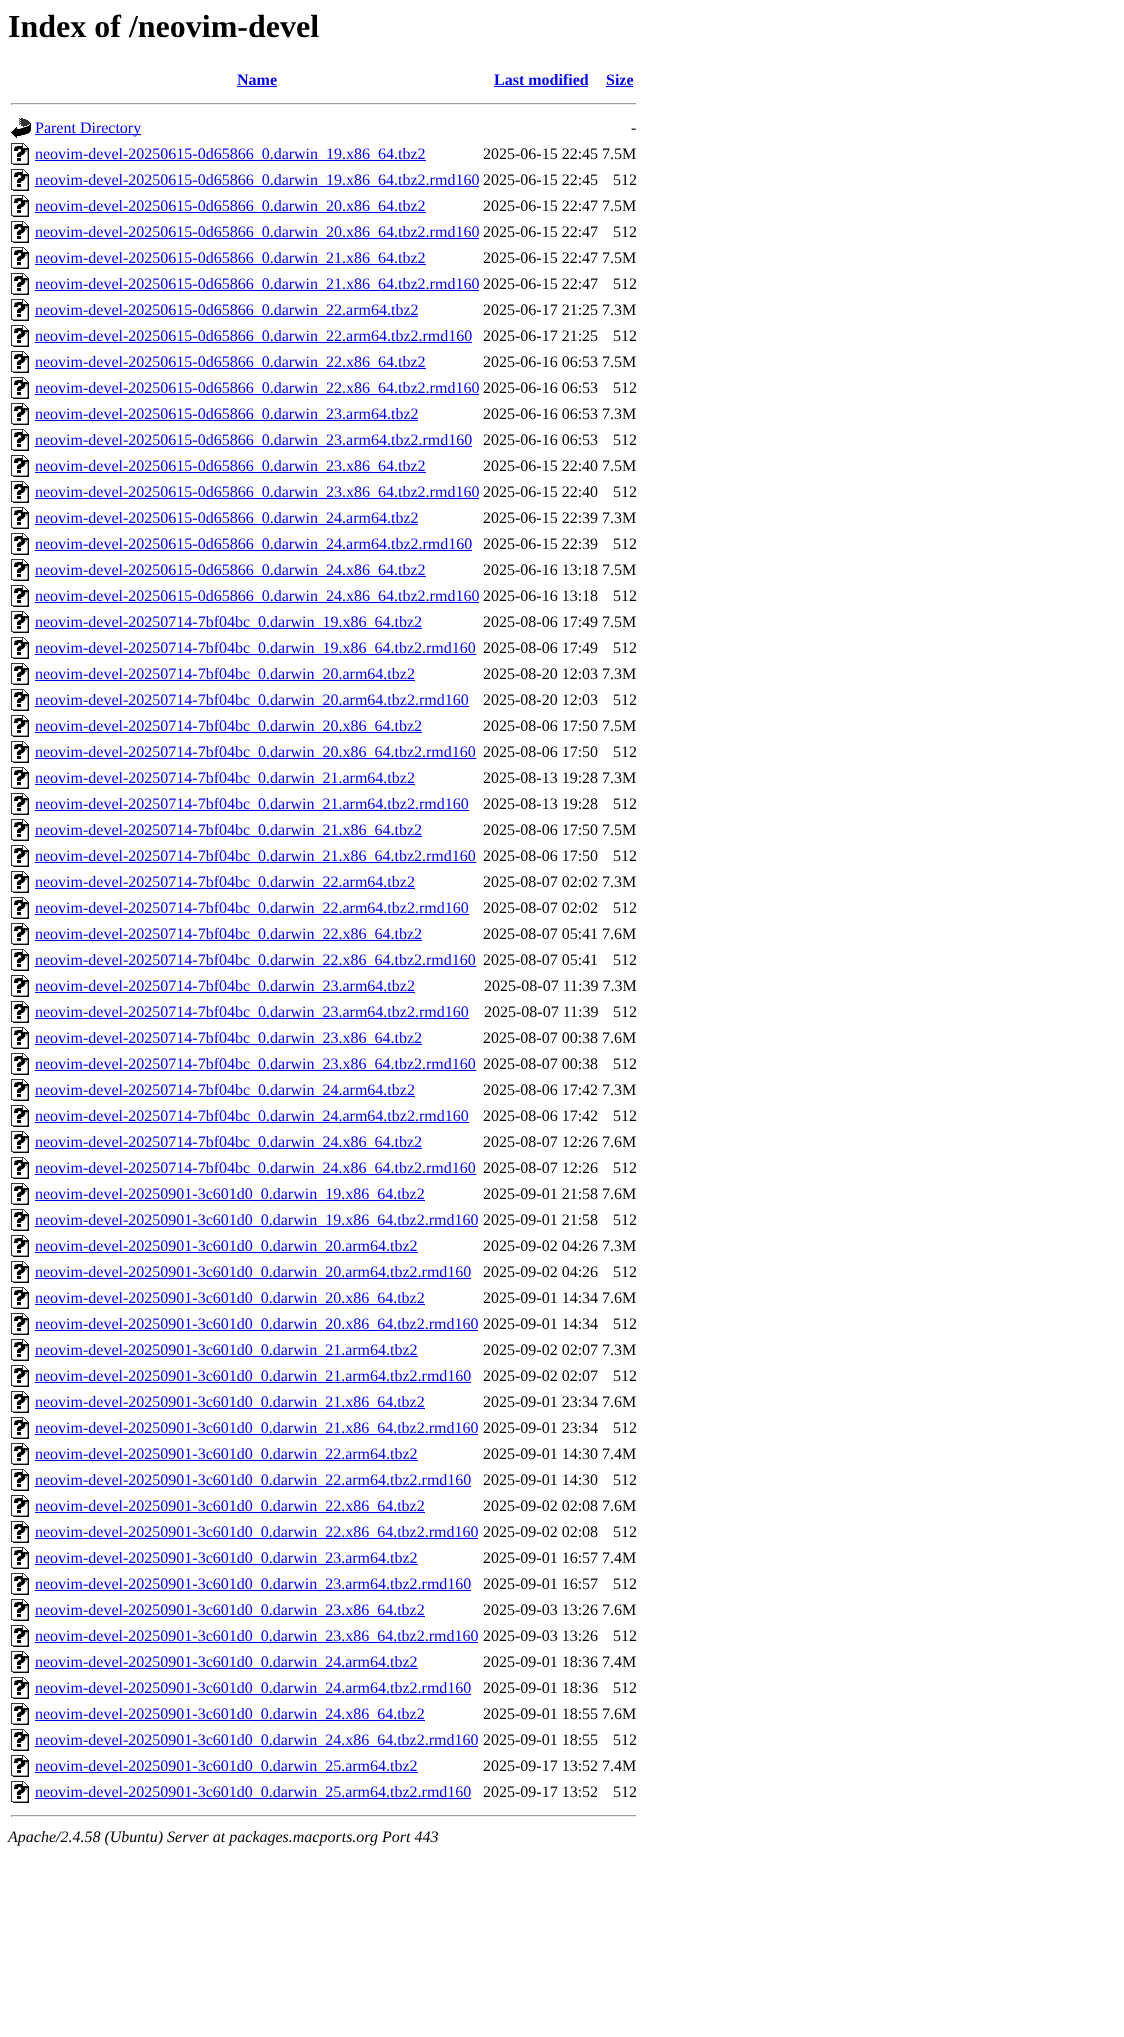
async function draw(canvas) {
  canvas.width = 1124;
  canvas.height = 2037;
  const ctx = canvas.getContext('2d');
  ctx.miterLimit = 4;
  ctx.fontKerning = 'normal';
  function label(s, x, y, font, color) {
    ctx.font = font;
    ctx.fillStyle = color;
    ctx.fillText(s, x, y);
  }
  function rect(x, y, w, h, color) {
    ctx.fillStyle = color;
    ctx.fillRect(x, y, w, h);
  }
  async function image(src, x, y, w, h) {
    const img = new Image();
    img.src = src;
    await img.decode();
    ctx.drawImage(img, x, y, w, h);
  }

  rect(0, 0, 1124, 2037, '#fff');
  label('Index of /neovim-devel', 8, 37, 'bold 32px Liberation Serif', '#000');
  label('Name', 237, 85, 'bold 16px Liberation Serif', '#00e');
  rect(237, 86, 40, 1, '#00e');
  label('Last modified', 494, 85, 'bold 16px Liberation Serif', '#00e');
  rect(494, 86, 94, 1, '#00e');
  label('Size', 606, 85, 'bold 16px Liberation Serif', '#00e');
  rect(606, 86, 27, 1, '#00e');
  rect(11, 103, 626, 1, '#9f9f9f');
  rect(636, 103, 1, 2, '#eee');
  rect(11, 104, 626, 1, '#eee');
  rect(11, 103, 1, 2, '#9f9f9f');
  await image('assets/img1.png', 11, 118, 20, 20);
  rect(35, 134, 106, 1, '#00e');
  label('Parent Directory', 35, 133, '16px Liberation Serif', '#00e');
  label('-', 631, 133, '16px Liberation Serif', '#000');
  await image('assets/img2.png', 11, 143, 18, 22);
  rect(35, 160, 391, 1, '#00e');
  label('neovim-devel-20250615-0d65866_0.darwin_19.x86_64.tbz2', 35, 159, '16px Liberation Serif', '#00e');
  label('2025-06-15 22:45 7.5M', 483, 159, '16px Liberation Serif', '#000');
  await image('assets/img2.png', 11, 169, 18, 22);
  rect(35, 186, 444, 1, '#00e');
  label('neovim-devel-20250615-0d65866_0.darwin_19.x86_64.tbz2.rmd160', 35, 185, '16px Liberation Serif', '#00e');
  label('2025-06-15 22:45', 483, 185, '16px Liberation Serif', '#000');
  label('512', 613, 185, '16px Liberation Serif', '#000');
  await image('assets/img2.png', 11, 195, 18, 22);
  rect(35, 212, 391, 1, '#00e');
  label('neovim-devel-20250615-0d65866_0.darwin_20.x86_64.tbz2', 35, 211, '16px Liberation Serif', '#00e');
  label('2025-06-15 22:47 7.5M', 483, 211, '16px Liberation Serif', '#000');
  await image('assets/img2.png', 11, 221, 18, 22);
  rect(35, 238, 444, 1, '#00e');
  label('neovim-devel-20250615-0d65866_0.darwin_20.x86_64.tbz2.rmd160', 35, 237, '16px Liberation Serif', '#00e');
  label('2025-06-15 22:47', 483, 237, '16px Liberation Serif', '#000');
  label('512', 613, 237, '16px Liberation Serif', '#000');
  await image('assets/img2.png', 11, 247, 18, 22);
  rect(35, 264, 391, 1, '#00e');
  label('neovim-devel-20250615-0d65866_0.darwin_21.x86_64.tbz2', 35, 263, '16px Liberation Serif', '#00e');
  label('2025-06-15 22:47 7.5M', 483, 263, '16px Liberation Serif', '#000');
  await image('assets/img2.png', 11, 273, 18, 22);
  rect(35, 290, 444, 1, '#00e');
  label('neovim-devel-20250615-0d65866_0.darwin_21.x86_64.tbz2.rmd160', 35, 289, '16px Liberation Serif', '#00e');
  label('2025-06-15 22:47', 483, 289, '16px Liberation Serif', '#000');
  label('512', 613, 289, '16px Liberation Serif', '#000');
  await image('assets/img2.png', 11, 299, 18, 22);
  rect(35, 316, 383, 1, '#00e');
  label('neovim-devel-20250615-0d65866_0.darwin_22.arm64.tbz2', 35, 315, '16px Liberation Serif', '#00e');
  label('2025-06-17 21:25 7.3M', 483, 315, '16px Liberation Serif', '#000');
  await image('assets/img2.png', 11, 325, 18, 22);
  rect(35, 342, 437, 1, '#00e');
  label('neovim-devel-20250615-0d65866_0.darwin_22.arm64.tbz2.rmd160', 35, 341, '16px Liberation Serif', '#00e');
  label('2025-06-17 21:25', 483, 341, '16px Liberation Serif', '#000');
  label('512', 613, 341, '16px Liberation Serif', '#000');
  await image('assets/img2.png', 11, 351, 18, 22);
  rect(35, 368, 391, 1, '#00e');
  label('neovim-devel-20250615-0d65866_0.darwin_22.x86_64.tbz2', 35, 367, '16px Liberation Serif', '#00e');
  label('2025-06-16 06:53 7.5M', 483, 367, '16px Liberation Serif', '#000');
  await image('assets/img2.png', 11, 377, 18, 22);
  rect(35, 394, 444, 1, '#00e');
  label('neovim-devel-20250615-0d65866_0.darwin_22.x86_64.tbz2.rmd160', 35, 393, '16px Liberation Serif', '#00e');
  label('2025-06-16 06:53', 483, 393, '16px Liberation Serif', '#000');
  label('512', 613, 393, '16px Liberation Serif', '#000');
  await image('assets/img2.png', 11, 403, 18, 22);
  rect(35, 420, 383, 1, '#00e');
  label('neovim-devel-20250615-0d65866_0.darwin_23.arm64.tbz2', 35, 419, '16px Liberation Serif', '#00e');
  label('2025-06-16 06:53 7.3M', 483, 419, '16px Liberation Serif', '#000');
  await image('assets/img2.png', 11, 429, 18, 22);
  rect(35, 446, 437, 1, '#00e');
  label('neovim-devel-20250615-0d65866_0.darwin_23.arm64.tbz2.rmd160', 35, 445, '16px Liberation Serif', '#00e');
  label('2025-06-16 06:53', 483, 445, '16px Liberation Serif', '#000');
  label('512', 613, 445, '16px Liberation Serif', '#000');
  await image('assets/img2.png', 11, 455, 18, 22);
  rect(35, 472, 391, 1, '#00e');
  label('neovim-devel-20250615-0d65866_0.darwin_23.x86_64.tbz2', 35, 471, '16px Liberation Serif', '#00e');
  label('2025-06-15 22:40 7.5M', 483, 471, '16px Liberation Serif', '#000');
  await image('assets/img2.png', 11, 481, 18, 22);
  rect(35, 498, 444, 1, '#00e');
  label('neovim-devel-20250615-0d65866_0.darwin_23.x86_64.tbz2.rmd160', 35, 497, '16px Liberation Serif', '#00e');
  label('2025-06-15 22:40', 483, 497, '16px Liberation Serif', '#000');
  label('512', 613, 497, '16px Liberation Serif', '#000');
  await image('assets/img2.png', 11, 507, 18, 22);
  rect(35, 524, 383, 1, '#00e');
  label('neovim-devel-20250615-0d65866_0.darwin_24.arm64.tbz2', 35, 523, '16px Liberation Serif', '#00e');
  label('2025-06-15 22:39 7.3M', 483, 523, '16px Liberation Serif', '#000');
  await image('assets/img2.png', 11, 533, 18, 22);
  rect(35, 550, 437, 1, '#00e');
  label('neovim-devel-20250615-0d65866_0.darwin_24.arm64.tbz2.rmd160', 35, 549, '16px Liberation Serif', '#00e');
  label('2025-06-15 22:39', 483, 549, '16px Liberation Serif', '#000');
  label('512', 613, 549, '16px Liberation Serif', '#000');
  await image('assets/img2.png', 11, 559, 18, 22);
  rect(35, 576, 391, 1, '#00e');
  label('neovim-devel-20250615-0d65866_0.darwin_24.x86_64.tbz2', 35, 575, '16px Liberation Serif', '#00e');
  label('2025-06-16 13:18 7.5M', 483, 575, '16px Liberation Serif', '#000');
  await image('assets/img2.png', 11, 585, 18, 22);
  rect(35, 602, 444, 1, '#00e');
  label('neovim-devel-20250615-0d65866_0.darwin_24.x86_64.tbz2.rmd160', 35, 601, '16px Liberation Serif', '#00e');
  label('2025-06-16 13:18', 483, 601, '16px Liberation Serif', '#000');
  label('512', 613, 601, '16px Liberation Serif', '#000');
  await image('assets/img2.png', 11, 611, 18, 22);
  rect(35, 628, 387, 1, '#00e');
  label('neovim-devel-20250714-7bf04bc_0.darwin_19.x86_64.tbz2', 35, 627, '16px Liberation Serif', '#00e');
  label('2025-08-06 17:49 7.5M', 483, 627, '16px Liberation Serif', '#000');
  await image('assets/img2.png', 11, 637, 18, 22);
  rect(35, 654, 441, 1, '#00e');
  label('neovim-devel-20250714-7bf04bc_0.darwin_19.x86_64.tbz2.rmd160', 35, 653, '16px Liberation Serif', '#00e');
  label('2025-08-06 17:49', 483, 653, '16px Liberation Serif', '#000');
  label('512', 613, 653, '16px Liberation Serif', '#000');
  await image('assets/img2.png', 11, 663, 18, 22);
  rect(35, 680, 380, 1, '#00e');
  label('neovim-devel-20250714-7bf04bc_0.darwin_20.arm64.tbz2', 35, 679, '16px Liberation Serif', '#00e');
  label('2025-08-20 12:03 7.3M', 483, 679, '16px Liberation Serif', '#000');
  await image('assets/img2.png', 11, 689, 18, 22);
  rect(35, 706, 434, 1, '#00e');
  label('neovim-devel-20250714-7bf04bc_0.darwin_20.arm64.tbz2.rmd160', 35, 705, '16px Liberation Serif', '#00e');
  label('2025-08-20 12:03', 483, 705, '16px Liberation Serif', '#000');
  label('512', 613, 705, '16px Liberation Serif', '#000');
  await image('assets/img2.png', 11, 715, 18, 22);
  rect(35, 732, 387, 1, '#00e');
  label('neovim-devel-20250714-7bf04bc_0.darwin_20.x86_64.tbz2', 35, 731, '16px Liberation Serif', '#00e');
  label('2025-08-06 17:50 7.5M', 483, 731, '16px Liberation Serif', '#000');
  await image('assets/img2.png', 11, 741, 18, 22);
  rect(35, 758, 441, 1, '#00e');
  label('neovim-devel-20250714-7bf04bc_0.darwin_20.x86_64.tbz2.rmd160', 35, 757, '16px Liberation Serif', '#00e');
  label('2025-08-06 17:50', 483, 757, '16px Liberation Serif', '#000');
  label('512', 613, 757, '16px Liberation Serif', '#000');
  await image('assets/img2.png', 11, 767, 18, 22);
  rect(35, 784, 380, 1, '#00e');
  label('neovim-devel-20250714-7bf04bc_0.darwin_21.arm64.tbz2', 35, 783, '16px Liberation Serif', '#00e');
  label('2025-08-13 19:28 7.3M', 483, 783, '16px Liberation Serif', '#000');
  await image('assets/img2.png', 11, 793, 18, 22);
  rect(35, 810, 434, 1, '#00e');
  label('neovim-devel-20250714-7bf04bc_0.darwin_21.arm64.tbz2.rmd160', 35, 809, '16px Liberation Serif', '#00e');
  label('2025-08-13 19:28', 483, 809, '16px Liberation Serif', '#000');
  label('512', 613, 809, '16px Liberation Serif', '#000');
  await image('assets/img2.png', 11, 819, 18, 22);
  rect(35, 836, 387, 1, '#00e');
  label('neovim-devel-20250714-7bf04bc_0.darwin_21.x86_64.tbz2', 35, 835, '16px Liberation Serif', '#00e');
  label('2025-08-06 17:50 7.5M', 483, 835, '16px Liberation Serif', '#000');
  await image('assets/img2.png', 11, 845, 18, 22);
  rect(35, 862, 441, 1, '#00e');
  label('neovim-devel-20250714-7bf04bc_0.darwin_21.x86_64.tbz2.rmd160', 35, 861, '16px Liberation Serif', '#00e');
  label('2025-08-06 17:50', 483, 861, '16px Liberation Serif', '#000');
  label('512', 613, 861, '16px Liberation Serif', '#000');
  await image('assets/img2.png', 11, 871, 18, 22);
  rect(35, 888, 380, 1, '#00e');
  label('neovim-devel-20250714-7bf04bc_0.darwin_22.arm64.tbz2', 35, 887, '16px Liberation Serif', '#00e');
  label('2025-08-07 02:02 7.3M', 483, 887, '16px Liberation Serif', '#000');
  await image('assets/img2.png', 11, 897, 18, 22);
  rect(35, 914, 434, 1, '#00e');
  label('neovim-devel-20250714-7bf04bc_0.darwin_22.arm64.tbz2.rmd160', 35, 913, '16px Liberation Serif', '#00e');
  label('2025-08-07 02:02', 483, 913, '16px Liberation Serif', '#000');
  label('512', 613, 913, '16px Liberation Serif', '#000');
  await image('assets/img2.png', 11, 923, 18, 22);
  rect(35, 940, 387, 1, '#00e');
  label('neovim-devel-20250714-7bf04bc_0.darwin_22.x86_64.tbz2', 35, 939, '16px Liberation Serif', '#00e');
  label('2025-08-07 05:41 7.6M', 483, 939, '16px Liberation Serif', '#000');
  await image('assets/img2.png', 11, 949, 18, 22);
  rect(35, 966, 441, 1, '#00e');
  label('neovim-devel-20250714-7bf04bc_0.darwin_22.x86_64.tbz2.rmd160', 35, 965, '16px Liberation Serif', '#00e');
  label('2025-08-07 05:41', 483, 965, '16px Liberation Serif', '#000');
  label('512', 613, 965, '16px Liberation Serif', '#000');
  await image('assets/img2.png', 11, 975, 18, 22);
  rect(35, 992, 380, 1, '#00e');
  label('neovim-devel-20250714-7bf04bc_0.darwin_23.arm64.tbz2', 35, 991, '16px Liberation Serif', '#00e');
  label('2025-08-07 11:39 7.3M', 484, 991, '16px Liberation Serif', '#000');
  await image('assets/img2.png', 11, 1001, 18, 22);
  rect(35, 1018, 434, 1, '#00e');
  label('neovim-devel-20250714-7bf04bc_0.darwin_23.arm64.tbz2.rmd160', 35, 1017, '16px Liberation Serif', '#00e');
  label('2025-08-07 11:39', 484, 1017, '16px Liberation Serif', '#000');
  label('512', 613, 1017, '16px Liberation Serif', '#000');
  await image('assets/img2.png', 11, 1027, 18, 22);
  rect(35, 1044, 387, 1, '#00e');
  label('neovim-devel-20250714-7bf04bc_0.darwin_23.x86_64.tbz2', 35, 1043, '16px Liberation Serif', '#00e');
  label('2025-08-07 00:38 7.6M', 483, 1043, '16px Liberation Serif', '#000');
  await image('assets/img2.png', 11, 1053, 18, 22);
  rect(35, 1070, 441, 1, '#00e');
  label('neovim-devel-20250714-7bf04bc_0.darwin_23.x86_64.tbz2.rmd160', 35, 1069, '16px Liberation Serif', '#00e');
  label('2025-08-07 00:38', 483, 1069, '16px Liberation Serif', '#000');
  label('512', 613, 1069, '16px Liberation Serif', '#000');
  await image('assets/img2.png', 11, 1079, 18, 22);
  rect(35, 1096, 380, 1, '#00e');
  label('neovim-devel-20250714-7bf04bc_0.darwin_24.arm64.tbz2', 35, 1095, '16px Liberation Serif', '#00e');
  label('2025-08-06 17:42 7.3M', 483, 1095, '16px Liberation Serif', '#000');
  await image('assets/img2.png', 11, 1105, 18, 22);
  rect(35, 1122, 434, 1, '#00e');
  label('neovim-devel-20250714-7bf04bc_0.darwin_24.arm64.tbz2.rmd160', 35, 1121, '16px Liberation Serif', '#00e');
  label('2025-08-06 17:42', 483, 1121, '16px Liberation Serif', '#000');
  label('512', 613, 1121, '16px Liberation Serif', '#000');
  await image('assets/img2.png', 11, 1131, 18, 22);
  rect(35, 1148, 387, 1, '#00e');
  label('neovim-devel-20250714-7bf04bc_0.darwin_24.x86_64.tbz2', 35, 1147, '16px Liberation Serif', '#00e');
  label('2025-08-07 12:26 7.6M', 483, 1147, '16px Liberation Serif', '#000');
  await image('assets/img2.png', 11, 1157, 18, 22);
  rect(35, 1174, 441, 1, '#00e');
  label('neovim-devel-20250714-7bf04bc_0.darwin_24.x86_64.tbz2.rmd160', 35, 1173, '16px Liberation Serif', '#00e');
  label('2025-08-07 12:26', 483, 1173, '16px Liberation Serif', '#000');
  label('512', 613, 1173, '16px Liberation Serif', '#000');
  await image('assets/img2.png', 11, 1183, 18, 22);
  rect(35, 1200, 390, 1, '#00e');
  label('neovim-devel-20250901-3c601d0_0.darwin_19.x86_64.tbz2', 35, 1199, '16px Liberation Serif', '#00e');
  label('2025-09-01 21:58 7.6M', 483, 1199, '16px Liberation Serif', '#000');
  await image('assets/img2.png', 11, 1209, 18, 22);
  rect(35, 1226, 443, 1, '#00e');
  label('neovim-devel-20250901-3c601d0_0.darwin_19.x86_64.tbz2.rmd160', 35, 1225, '16px Liberation Serif', '#00e');
  label('2025-09-01 21:58', 483, 1225, '16px Liberation Serif', '#000');
  label('512', 613, 1225, '16px Liberation Serif', '#000');
  await image('assets/img2.png', 11, 1235, 18, 22);
  rect(35, 1252, 383, 1, '#00e');
  label('neovim-devel-20250901-3c601d0_0.darwin_20.arm64.tbz2', 35, 1251, '16px Liberation Serif', '#00e');
  label('2025-09-02 04:26 7.3M', 483, 1251, '16px Liberation Serif', '#000');
  await image('assets/img2.png', 11, 1261, 18, 22);
  rect(35, 1278, 436, 1, '#00e');
  label('neovim-devel-20250901-3c601d0_0.darwin_20.arm64.tbz2.rmd160', 35, 1277, '16px Liberation Serif', '#00e');
  label('2025-09-02 04:26', 483, 1277, '16px Liberation Serif', '#000');
  label('512', 613, 1277, '16px Liberation Serif', '#000');
  await image('assets/img2.png', 11, 1287, 18, 22);
  rect(35, 1304, 390, 1, '#00e');
  label('neovim-devel-20250901-3c601d0_0.darwin_20.x86_64.tbz2', 35, 1303, '16px Liberation Serif', '#00e');
  label('2025-09-01 14:34 7.6M', 483, 1303, '16px Liberation Serif', '#000');
  await image('assets/img2.png', 11, 1313, 18, 22);
  rect(35, 1330, 443, 1, '#00e');
  label('neovim-devel-20250901-3c601d0_0.darwin_20.x86_64.tbz2.rmd160', 35, 1329, '16px Liberation Serif', '#00e');
  label('2025-09-01 14:34', 483, 1329, '16px Liberation Serif', '#000');
  label('512', 613, 1329, '16px Liberation Serif', '#000');
  await image('assets/img2.png', 11, 1339, 18, 22);
  rect(35, 1356, 383, 1, '#00e');
  label('neovim-devel-20250901-3c601d0_0.darwin_21.arm64.tbz2', 35, 1355, '16px Liberation Serif', '#00e');
  label('2025-09-02 02:07 7.3M', 483, 1355, '16px Liberation Serif', '#000');
  await image('assets/img2.png', 11, 1365, 18, 22);
  rect(35, 1382, 436, 1, '#00e');
  label('neovim-devel-20250901-3c601d0_0.darwin_21.arm64.tbz2.rmd160', 35, 1381, '16px Liberation Serif', '#00e');
  label('2025-09-02 02:07', 483, 1381, '16px Liberation Serif', '#000');
  label('512', 613, 1381, '16px Liberation Serif', '#000');
  await image('assets/img2.png', 11, 1391, 18, 22);
  rect(35, 1408, 390, 1, '#00e');
  label('neovim-devel-20250901-3c601d0_0.darwin_21.x86_64.tbz2', 35, 1407, '16px Liberation Serif', '#00e');
  label('2025-09-01 23:34 7.6M', 483, 1407, '16px Liberation Serif', '#000');
  await image('assets/img2.png', 11, 1417, 18, 22);
  rect(35, 1434, 443, 1, '#00e');
  label('neovim-devel-20250901-3c601d0_0.darwin_21.x86_64.tbz2.rmd160', 35, 1433, '16px Liberation Serif', '#00e');
  label('2025-09-01 23:34', 483, 1433, '16px Liberation Serif', '#000');
  label('512', 613, 1433, '16px Liberation Serif', '#000');
  await image('assets/img2.png', 11, 1443, 18, 22);
  rect(35, 1460, 383, 1, '#00e');
  label('neovim-devel-20250901-3c601d0_0.darwin_22.arm64.tbz2', 35, 1459, '16px Liberation Serif', '#00e');
  label('2025-09-01 14:30 7.4M', 483, 1459, '16px Liberation Serif', '#000');
  await image('assets/img2.png', 11, 1469, 18, 22);
  rect(35, 1486, 436, 1, '#00e');
  label('neovim-devel-20250901-3c601d0_0.darwin_22.arm64.tbz2.rmd160', 35, 1485, '16px Liberation Serif', '#00e');
  label('2025-09-01 14:30', 483, 1485, '16px Liberation Serif', '#000');
  label('512', 613, 1485, '16px Liberation Serif', '#000');
  await image('assets/img2.png', 11, 1495, 18, 22);
  rect(35, 1512, 390, 1, '#00e');
  label('neovim-devel-20250901-3c601d0_0.darwin_22.x86_64.tbz2', 35, 1511, '16px Liberation Serif', '#00e');
  label('2025-09-02 02:08 7.6M', 483, 1511, '16px Liberation Serif', '#000');
  await image('assets/img2.png', 11, 1521, 18, 22);
  rect(35, 1538, 443, 1, '#00e');
  label('neovim-devel-20250901-3c601d0_0.darwin_22.x86_64.tbz2.rmd160', 35, 1537, '16px Liberation Serif', '#00e');
  label('2025-09-02 02:08', 483, 1537, '16px Liberation Serif', '#000');
  label('512', 613, 1537, '16px Liberation Serif', '#000');
  await image('assets/img2.png', 11, 1547, 18, 22);
  rect(35, 1564, 383, 1, '#00e');
  label('neovim-devel-20250901-3c601d0_0.darwin_23.arm64.tbz2', 35, 1563, '16px Liberation Serif', '#00e');
  label('2025-09-01 16:57 7.4M', 483, 1563, '16px Liberation Serif', '#000');
  await image('assets/img2.png', 11, 1573, 18, 22);
  rect(35, 1590, 436, 1, '#00e');
  label('neovim-devel-20250901-3c601d0_0.darwin_23.arm64.tbz2.rmd160', 35, 1589, '16px Liberation Serif', '#00e');
  label('2025-09-01 16:57', 483, 1589, '16px Liberation Serif', '#000');
  label('512', 613, 1589, '16px Liberation Serif', '#000');
  await image('assets/img2.png', 11, 1599, 18, 22);
  rect(35, 1616, 390, 1, '#00e');
  label('neovim-devel-20250901-3c601d0_0.darwin_23.x86_64.tbz2', 35, 1615, '16px Liberation Serif', '#00e');
  label('2025-09-03 13:26 7.6M', 483, 1615, '16px Liberation Serif', '#000');
  await image('assets/img2.png', 11, 1625, 18, 22);
  rect(35, 1642, 443, 1, '#00e');
  label('neovim-devel-20250901-3c601d0_0.darwin_23.x86_64.tbz2.rmd160', 35, 1641, '16px Liberation Serif', '#00e');
  label('2025-09-03 13:26', 483, 1641, '16px Liberation Serif', '#000');
  label('512', 613, 1641, '16px Liberation Serif', '#000');
  await image('assets/img2.png', 11, 1651, 18, 22);
  rect(35, 1668, 383, 1, '#00e');
  label('neovim-devel-20250901-3c601d0_0.darwin_24.arm64.tbz2', 35, 1667, '16px Liberation Serif', '#00e');
  label('2025-09-01 18:36 7.4M', 483, 1667, '16px Liberation Serif', '#000');
  await image('assets/img2.png', 11, 1677, 18, 22);
  rect(35, 1694, 436, 1, '#00e');
  label('neovim-devel-20250901-3c601d0_0.darwin_24.arm64.tbz2.rmd160', 35, 1693, '16px Liberation Serif', '#00e');
  label('2025-09-01 18:36', 483, 1693, '16px Liberation Serif', '#000');
  label('512', 613, 1693, '16px Liberation Serif', '#000');
  await image('assets/img2.png', 11, 1703, 18, 22);
  rect(35, 1720, 390, 1, '#00e');
  label('neovim-devel-20250901-3c601d0_0.darwin_24.x86_64.tbz2', 35, 1719, '16px Liberation Serif', '#00e');
  label('2025-09-01 18:55 7.6M', 483, 1719, '16px Liberation Serif', '#000');
  await image('assets/img2.png', 11, 1729, 18, 22);
  rect(35, 1746, 443, 1, '#00e');
  label('neovim-devel-20250901-3c601d0_0.darwin_24.x86_64.tbz2.rmd160', 35, 1745, '16px Liberation Serif', '#00e');
  label('2025-09-01 18:55', 483, 1745, '16px Liberation Serif', '#000');
  label('512', 613, 1745, '16px Liberation Serif', '#000');
  await image('assets/img2.png', 11, 1755, 18, 22);
  rect(35, 1772, 383, 1, '#00e');
  label('neovim-devel-20250901-3c601d0_0.darwin_25.arm64.tbz2', 35, 1771, '16px Liberation Serif', '#00e');
  label('2025-09-17 13:52 7.4M', 483, 1771, '16px Liberation Serif', '#000');
  await image('assets/img2.png', 11, 1781, 18, 22);
  rect(35, 1798, 436, 1, '#00e');
  label('neovim-devel-20250901-3c601d0_0.darwin_25.arm64.tbz2.rmd160', 35, 1797, '16px Liberation Serif', '#00e');
  label('2025-09-17 13:52', 483, 1797, '16px Liberation Serif', '#000');
  label('512', 613, 1797, '16px Liberation Serif', '#000');
  rect(11, 1815, 626, 1, '#9f9f9f');
  rect(636, 1815, 1, 2, '#eee');
  rect(11, 1816, 626, 1, '#eee');
  rect(11, 1815, 1, 2, '#9f9f9f');
  label('Apache/2.4.58 (Ubuntu) Server at packages.macports.org Port 443', 8, 1842, 'italic 16px Liberation Serif', '#000');
}

draw(document.querySelector('canvas'));
